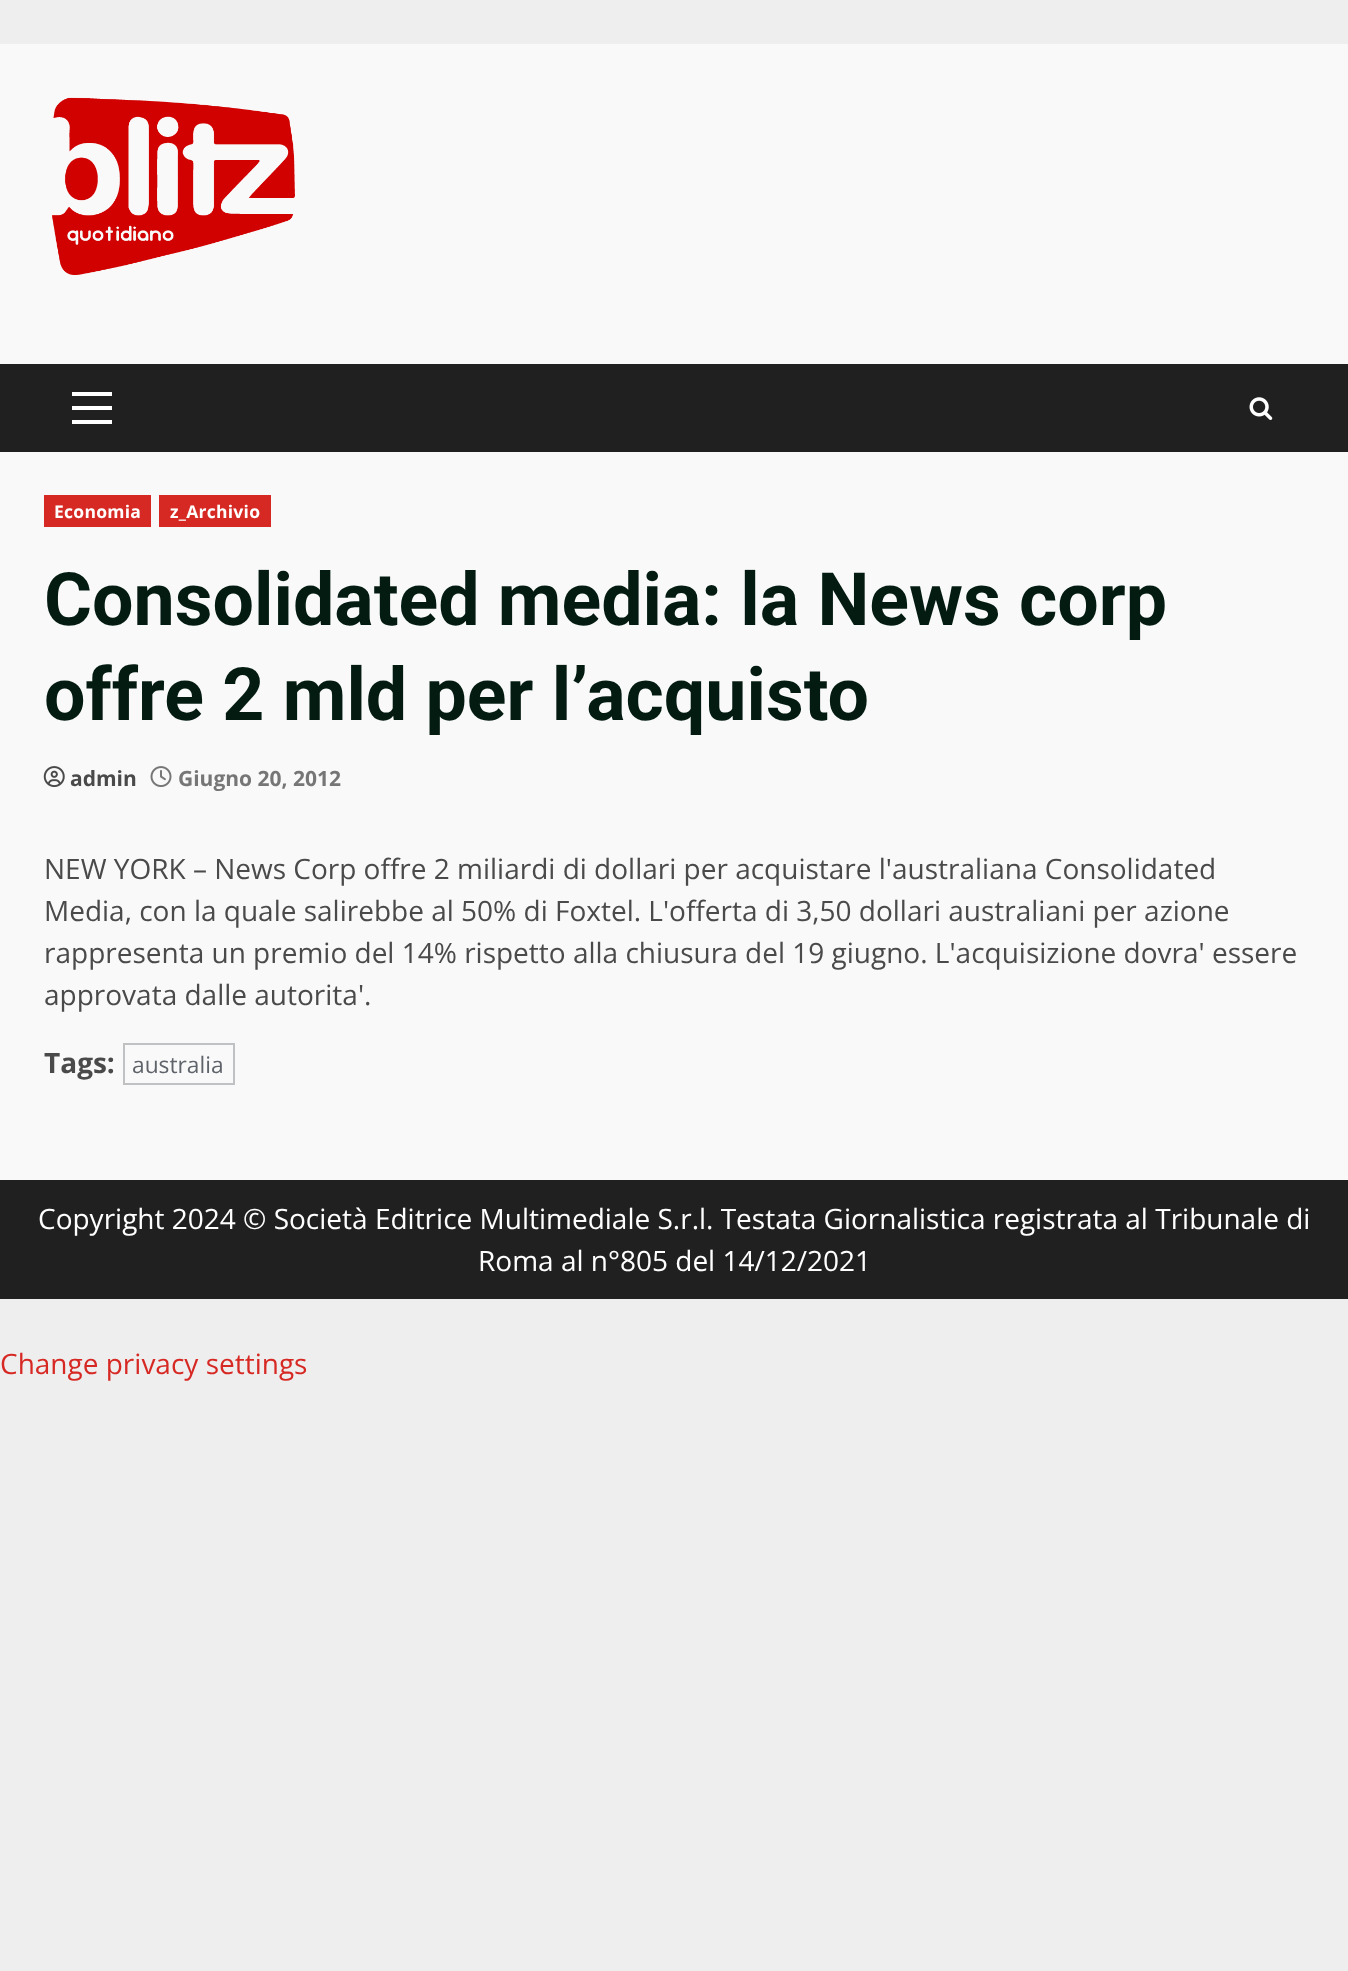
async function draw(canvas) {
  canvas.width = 1348;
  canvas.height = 1971;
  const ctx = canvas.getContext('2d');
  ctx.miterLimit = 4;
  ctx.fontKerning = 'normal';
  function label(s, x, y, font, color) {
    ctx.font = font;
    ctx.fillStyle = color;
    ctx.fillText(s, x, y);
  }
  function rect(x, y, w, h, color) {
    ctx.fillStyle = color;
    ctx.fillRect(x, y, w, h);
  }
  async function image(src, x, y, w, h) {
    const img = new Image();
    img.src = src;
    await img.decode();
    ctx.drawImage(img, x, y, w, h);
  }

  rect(0, 0, 1348, 1971, '#eee');
  rect(0, 44, 1348, 1136, '#f9f9f9');
  await image('assets/img1.png', 52, 97, 243, 178);
  rect(0, 364, 1348, 88, '#202020');
  rect(72, 406, 40, 4, '#fff');
  rect(72, 392, 40, 4, '#fff');
  rect(72, 420, 40, 4, '#fff');
  await image('assets/img2.png', 1249, 397, 24, 23);
  rect(44, 495, 107, 32, '#d72924');
  ctx.letterSpacing = '0.25px';
  label('Economia', 54, 518, 'bold 17.5px Open Sans', '#fff');
  rect(159, 495, 112, 32, '#d72924');
  label('z_Archivio', 170, 518, 'bold 17.5px Open Sans', '#fff');
  ctx.letterSpacing = '0px';
  label('Consolidated media: la News corp', 44, 625, 'bold 73.5px Roboto', '#031b11');
  label('offre 2 mld per l’acquisto', 44, 720, 'bold 73.5px Roboto', '#031b11');
  await image('assets/img3.png', 43, 766, 22, 22);
  label('admin', 70, 786, 'bold 21px Open Sans', '#4a4a4a');
  await image('assets/img4.png', 150, 766, 22, 21);
  label('Giugno 20, 2012', 178, 786, 'bold 21px Open Sans', '#767676');
  label('NEW YORK – News Corp offre 2 miliardi di dollari per acquistare l\'australiana Consolidated', 44, 879, '28px Open Sans', '#4a4a4a');
  label('Media, con la quale salirebbe al 50% di Foxtel. L\'offerta di 3,50 dollari australiani per azione', 44, 921, '28px Open Sans', '#4a4a4a');
  label('rappresenta un premio del 14% rispetto alla chiusura del 19 giugno. L\'acquisizione dovra\' essere', 44, 963, '28px Open Sans', '#4a4a4a');
  label('approvata dalle autorita\'.', 44, 1005, '28px Open Sans', '#4a4a4a');
  label('Tags:', 44, 1073, 'bold 28px Open Sans', '#4a4a4a');
  ctx.strokeStyle = '#bfc1c3';
  ctx.lineWidth = 2;
  ctx.strokeRect(124, 1044, 110, 40);
  label('australia', 132, 1073, '22.75px Open Sans', '#5f636a');
  rect(0, 1180, 1348, 119, '#202020');
  label('Copyright 2024 © Società Editrice Multimediale S.r.l. Testata Giornalistica registrata al Tribunale di', 38, 1229, '28px Open Sans', '#fff');
  label('Roma al n°805 del 14/12/2021', 478, 1271, '28px Open Sans', '#fff');
  label('Change privacy settings', 0, 1374, '28px Open Sans', '#d72924');
}

draw(document.querySelector('canvas'));
